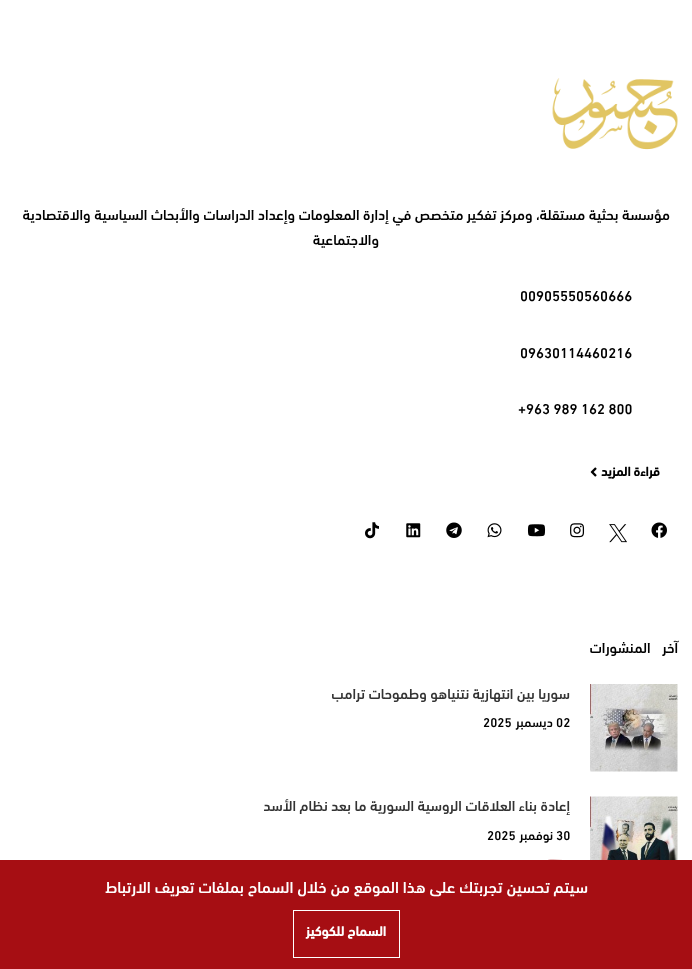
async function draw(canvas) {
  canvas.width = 692;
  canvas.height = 969;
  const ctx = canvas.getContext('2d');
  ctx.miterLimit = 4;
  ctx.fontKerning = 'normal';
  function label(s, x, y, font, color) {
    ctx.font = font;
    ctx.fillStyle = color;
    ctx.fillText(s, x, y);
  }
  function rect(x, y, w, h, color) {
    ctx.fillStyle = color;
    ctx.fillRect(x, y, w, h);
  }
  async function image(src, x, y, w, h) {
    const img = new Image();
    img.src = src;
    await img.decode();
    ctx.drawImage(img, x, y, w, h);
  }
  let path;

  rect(0, 0, 692, 969, '#fff');
  await image('assets/img1.png', 552, 78, 126, 72);
  ctx.direction = 'rtl';
  label('مؤسسة بحثية مستقلة، ومركز تفكير متخصص في إدارة المعلومات وإعداد الدراسات والأبحاث السياسية والاقتصادية', 670, 220, '500 14.6px "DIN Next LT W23"', '#000');
  label('والاجتماعية', 379, 245, '500 14.6px "DIN Next LT W23"', '#000');
  ctx.direction = 'ltr';
  label('00905550560666', 520, 301, '500 14.6px "DIN Next LT W23"', '#000');
  label('09630114460216', 520, 358, '500 14.6px "DIN Next LT W23"', '#000');
  label('+963 989 162 800', 518, 414, '500 14.6px "DIN Next LT W23"', '#000');
  ctx.direction = 'rtl';
  label('قراءة المزيد', 660, 476, 'bold 13px "DIN Next LT W23"', '#000');
  await image('assets/img2.png', 590, 467, 7, 10);
  await image('assets/img3.png', 651, 522, 16, 16);
  await image('assets/img4.png', 609, 524, 18, 19);
  await image('assets/img5.png', 570, 523, 15, 15);
  await image('assets/img6.png', 527, 524, 19, 13);
  await image('assets/img7.png', 487, 523, 15, 15);
  await image('assets/img8.png', 446, 522, 16, 16);
  await image('assets/img9.png', 406, 523, 15, 15);
  await image('assets/img10.png', 365, 522, 14, 17);
  ctx.letterSpacing = '-0.75px';
  ctx.wordSpacing = '9px';
  label('آخر المنشورات', 678, 653, '500 14.6px "DIN Next LT W23"', '#000');
  await image('assets/img11.png', 590, 684, 88, 88);
  ctx.letterSpacing = '0px';
  ctx.wordSpacing = '0px';
  label('سوريا بين انتهازية نتنياهو وطموحات ترامب', 570, 699, '500 14.6px "DIN Next LT W23"', '#333');
  ctx.direction = 'ltr';
  label('02', 556, 727, '500 13px "DIN Next LT W23"', '#000');
  ctx.direction = 'rtl';
  label('ديسمبر', 553, 727, '500 13px "DIN Next LT W23"', '#000');
  ctx.direction = 'ltr';
  label('2025', 483, 727, '500 13px "DIN Next LT W23"', '#000');
  await image('assets/img12.png', 590, 796, 88, 64);
  ctx.direction = 'rtl';
  label('إعادة بناء العلاقات الروسية السورية ما بعد نظام الأسد', 570, 811, '500 14.6px "DIN Next LT W23"', '#333');
  ctx.direction = 'ltr';
  label('30', 556, 840, '500 13px "DIN Next LT W23"', '#000');
  ctx.direction = 'rtl';
  label('نوفمبر', 553, 840, '500 13px "DIN Next LT W23"', '#000');
  ctx.direction = 'ltr';
  label('2025', 487, 840, '500 13px "DIN Next LT W23"', '#000');
  path = new Path2D('M540.5 905.5C538.5 903.5 539.5 898.5 539.5 896V884C539.5 856 535 860.5 563.5 860.5H642.5C671.5 860.5 667 856 667 884V896C667 898.5 668 903.5 665.5 905.5');
  ctx.strokeStyle = '#a60e13';
  ctx.lineWidth = 1.2;
  ctx.stroke(path);
  rect(0, 860, 692, 109, '#a60e13');
  ctx.direction = 'rtl';
  label('سيتم تحسين تجربتك على هذا الموقع من خلال السماح بملفات تعريف الارتباط', 588, 893, '500 16.25px "DIN Next LT W23"', '#fff');
  ctx.strokeStyle = '#fff';
  ctx.lineWidth = 1;
  ctx.strokeRect(293.5, 910.5, 106, 47);
  label('السماح للكوكيز', 386, 936, 'bold 13.75px "DIN Next LT W23"', '#fff');
}

draw(document.querySelector('canvas'));
